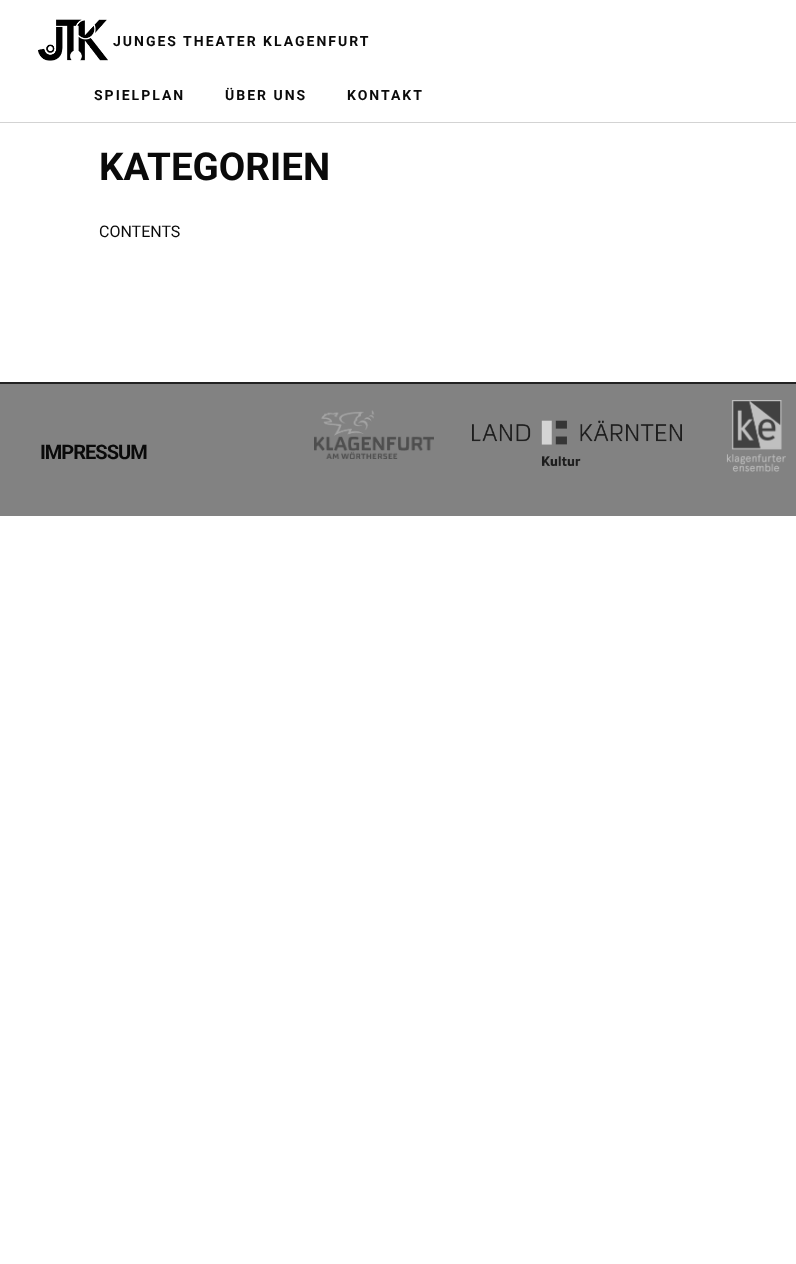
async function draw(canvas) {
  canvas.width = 796;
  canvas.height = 1264;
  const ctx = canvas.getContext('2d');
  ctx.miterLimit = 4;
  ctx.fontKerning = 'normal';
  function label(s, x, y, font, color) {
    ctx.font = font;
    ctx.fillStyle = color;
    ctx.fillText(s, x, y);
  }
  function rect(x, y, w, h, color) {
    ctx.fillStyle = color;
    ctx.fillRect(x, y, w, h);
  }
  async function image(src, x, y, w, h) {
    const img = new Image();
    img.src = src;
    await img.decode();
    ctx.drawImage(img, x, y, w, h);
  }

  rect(0, 0, 796, 1264, '#fff');
  rect(0, 122, 796, 1, '#d3d3d3');
  await image('assets/img1.png', 38, 19, 70, 42);
  ctx.letterSpacing = '2px';
  label('JUNGES THEATER KLAGENFURT', 113, 46, 'bold 14px Roboto', '#0a0a0a');
  label('SPIELPLAN', 94, 100, 'bold 14px Roboto', '#0a0a0a');
  label('ÜBER UNS', 225, 100, 'bold 14px Roboto', '#0a0a0a');
  label('KONTAKT', 347, 100, 'bold 14px Roboto', '#0a0a0a');
  ctx.letterSpacing = '0px';
  label('KATEGORIEN', 99, 180, 'bold 38.5px Roboto', '#0a0a0a');
  label('CONTENTS', 99, 237, '16px Roboto', '#0a0a0a');
  rect(0, 384, 796, 132, '#828282');
  rect(0, 382, 796, 2, '#222');
  ctx.letterSpacing = '-1px';
  label('IMPRESSUM', 40, 459, 'bold 20px Roboto', '#0a0a0a');
  await image('assets/img2.png', 314, 410, 120, 49);
  await image('assets/img3.png', 472, 420, 210, 46);
  await image('assets/img4.png', 726, 400, 60, 72);
}

draw(document.querySelector('canvas'));
